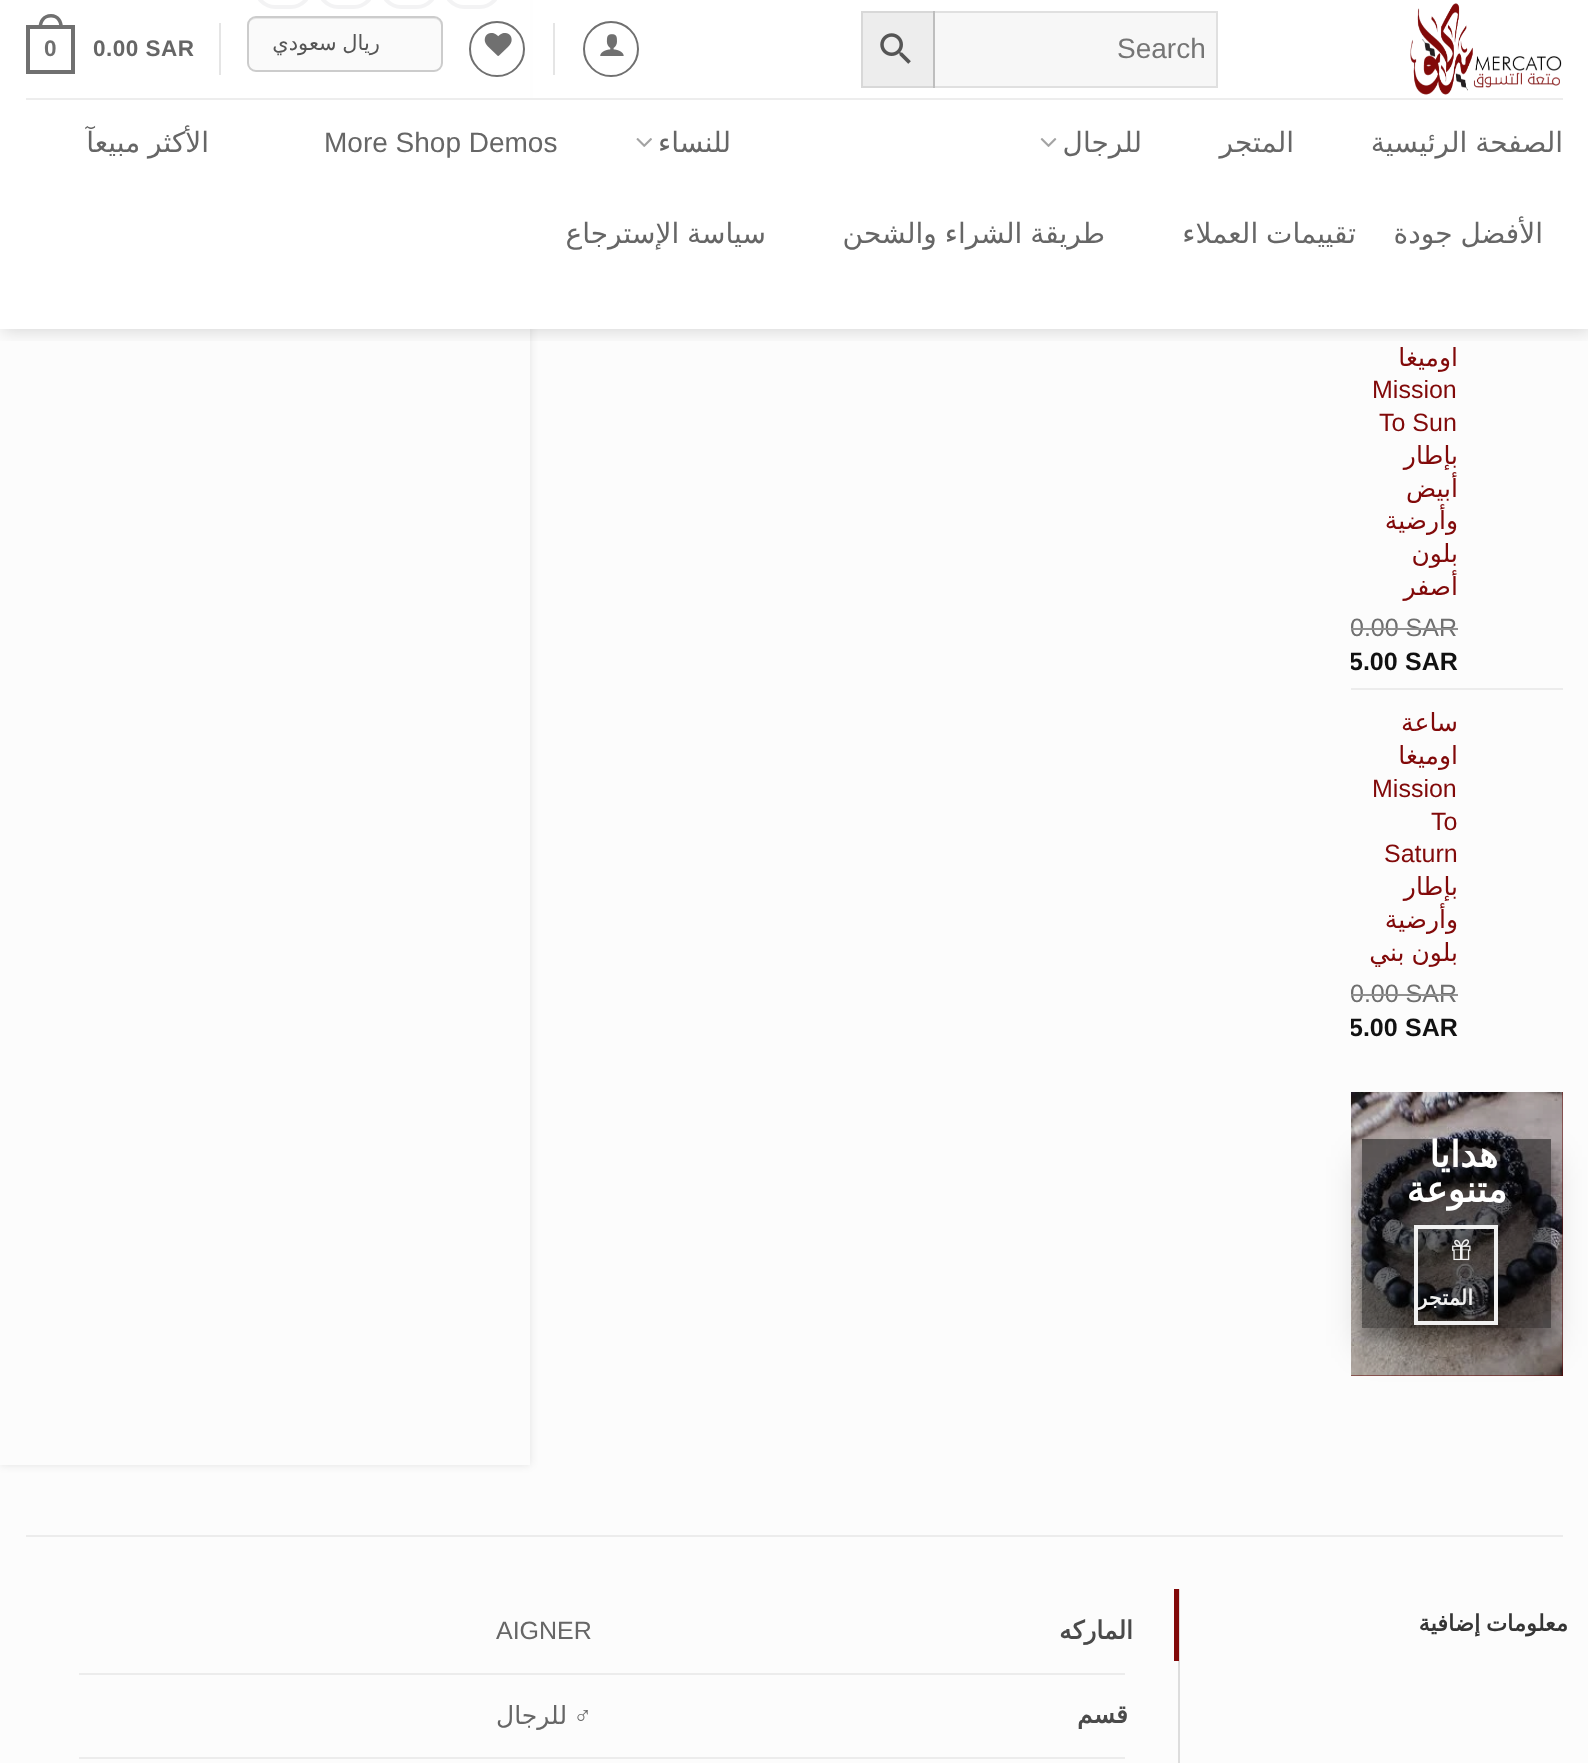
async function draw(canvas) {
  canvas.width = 1588;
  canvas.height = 1763;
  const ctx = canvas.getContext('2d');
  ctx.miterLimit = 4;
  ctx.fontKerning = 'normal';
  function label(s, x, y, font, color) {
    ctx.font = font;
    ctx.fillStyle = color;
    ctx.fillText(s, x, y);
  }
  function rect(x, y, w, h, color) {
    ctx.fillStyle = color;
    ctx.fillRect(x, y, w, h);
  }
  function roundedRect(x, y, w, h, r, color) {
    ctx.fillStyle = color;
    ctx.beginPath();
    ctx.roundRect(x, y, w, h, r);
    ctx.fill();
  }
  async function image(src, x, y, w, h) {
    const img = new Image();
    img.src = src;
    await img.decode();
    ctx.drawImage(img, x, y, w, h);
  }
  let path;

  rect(0, 0, 1588, 1763, '#fcfcfc');
  ctx.save();
  path = new Path2D('M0 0H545V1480H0ZM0-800H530V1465H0Z');
  ctx.clip(path, 'evenodd');
  ctx.fillStyle = '#0000001a';
  ctx.filter = 'blur(4.5px)';
  ctx.beginPath();
  ctx.rect(0, -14, 530, 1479);
  ctx.fill();
  ctx.filter = 'none';
  ctx.restore();
  ctx.beginPath();
  ctx.roundRect(445, -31, 54, 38, 27);
  ctx.strokeStyle = '#858691';
  ctx.lineWidth = 4;
  ctx.stroke();
  ctx.beginPath();
  ctx.roundRect(382, -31, 54, 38, 27);
  ctx.stroke();
  ctx.beginPath();
  ctx.roundRect(319, -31, 54, 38, 27);
  ctx.stroke();
  ctx.beginPath();
  ctx.roundRect(256, -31, 54, 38, 27);
  ctx.stroke();
  ctx.save();
  ctx.beginPath();
  ctx.rect(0, 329, 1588, 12);
  ctx.clip();
  ctx.fillStyle = '#00000026';
  ctx.filter = 'blur(9px)';
  ctx.beginPath();
  ctx.rect(2, 2, 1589, 329);
  ctx.fill();
  ctx.filter = 'none';
  ctx.restore();
  rect(0, 0, 1588, 98, '#ffffffe6');
  await image('assets/img1.png', 1410, 3, 152, 92);
  ctx.fillStyle = '#ededed';
  ctx.beginPath();
  ctx.rect(862, 12, 72, 75);
  ctx.fill();
  ctx.strokeStyle = '#d8d8d8';
  ctx.lineWidth = 2;
  ctx.stroke();
  rect(933, 11, 285, 77, '#00000008');
  ctx.strokeStyle = '#00000017';
  ctx.strokeRect(934, 12, 283, 75);
  label('Search', 1117, 58, '28px Liberation Sans', '#757575');
  await image('assets/img2.png', 880, 33, 31, 31);
  ctx.beginPath();
  ctx.arc(611, 49, 27, 0, 2 * Math.PI);
  ctx.strokeStyle = '#707070';
  ctx.stroke();
  await image('assets/img3.png', 600, 34, 24, 22);
  rect(553, 23, 2, 52, '#e5e5e5');
  ctx.beginPath();
  ctx.arc(497, 49, 27, 0, 2 * Math.PI);
  ctx.stroke();
  await image('assets/img4.png', 484, 33, 28, 23);
  roundedRect(247, 16, 196, 56, 9, '#fafafa');
  ctx.fillStyle = '#e7e7e7';
  path = new Path2D('M256 19H434C438 19 441 22 441 26V25C441 21 438 18 434 18H256C253 18 251 19 250 22C251 20 254 19 256 19Z');
  ctx.fill(path);
  ctx.beginPath();
  ctx.roundRect(248, 17, 194, 54, 8);
  ctx.strokeStyle = '#ccc';
  ctx.stroke();
  ctx.wordSpacing = '-1px';
  ctx.direction = 'rtl';
  label('ريال سعودي', 380, 50, '21px DejaVu Sans', '#555');
  rect(219, 23, 2, 52, '#e5e5e5');
  ctx.letterSpacing = '0.5px';
  ctx.wordSpacing = '0px';
  ctx.direction = 'ltr';
  label('0.00 SAR', 93, 56, 'bold 22.5px Liberation Sans', '#666');
  ctx.strokeStyle = '#707070';
  ctx.lineWidth = 4;
  ctx.strokeRect(28, 27, 45, 45);
  ctx.fillStyle = '#707070';
  path = new Path2D('M51 14C59 14 63 20.5 63 28H38.5C38.5 20.5 42.5 14 51 14ZM51 17.5C57 17.5 59.5 22.5 59.5 28H42C42 22.5 44.5 17.5 51 17.5Z');
  ctx.fill(path, 'evenodd');
  label('0', 44, 56, 'bold 22.5px Liberation Sans', '#6f6f6f');
  rect(0, 98, 1588, 231, '#fff');
  rect(26, 98, 1537, 2, '#ededed');
  ctx.letterSpacing = '0px';
  ctx.wordSpacing = '-1px';
  ctx.direction = 'rtl';
  label('الصفحة الرئيسية', 1563, 152, '28px DejaVu Sans', '#666');
  ctx.wordSpacing = '0px';
  label('المتجر', 1294, 152, '28px DejaVu Sans', '#666');
  label('للرجال', 1142, 152, '28px DejaVu Sans', '#666');
  await image('assets/img5.png', 1040, 138, 17, 9);
  label('للنساء', 731, 152, '28px DejaVu Sans', '#666');
  await image('assets/img6.png', 636, 138, 16, 9);
  ctx.direction = 'ltr';
  label('More Shop Demos', 324, 152, '28px Liberation Sans', '#666');
  ctx.wordSpacing = '-1px';
  ctx.direction = 'rtl';
  label('الأكثر مبيعآ', 209, 152, '28px DejaVu Sans', '#666');
  label('الأفضل جودة', 1543, 243, '28px DejaVu Sans', '#666');
  label('تقييمات العملاء', 1356, 243, '28px DejaVu Sans', '#666');
  label('طريقة الشراء والشحن', 1105, 243, '28px DejaVu Sans', '#666');
  label('سياسة الإسترجاع', 766, 243, '28px DejaVu Sans', '#666');
  ctx.wordSpacing = '0px';
  label('اوميغا', 1458, 366, '25px DejaVu Sans', '#810909');
  ctx.direction = 'ltr';
  label('Mission', 1372, 398, '25px Liberation Sans', '#810909');
  label('To Sun', 1379, 431, '25px Liberation Sans', '#810909');
  ctx.direction = 'rtl';
  label('بإطار', 1458, 464, '25px DejaVu Sans', '#810909');
  label('أبيض', 1458, 497, '25px DejaVu Sans', '#810909');
  label('وأرضية', 1458, 529, '25px DejaVu Sans', '#810909');
  label('بلون', 1458, 562, '25px DejaVu Sans', '#810909');
  label('أصفر', 1458, 595, '25px DejaVu Sans', '#810909');
  ctx.direction = 'ltr';
  label('0.00 SAR', 1350, 636, '25px Liberation Sans', '#6f6f6f');
  rect(1351, 628, 107, 2, '#919191');
  label('SAR', 1405, 670, 'bold 25px Liberation Sans', '#111');
  ctx.save();
  ctx.beginPath();
  ctx.rect(1351, 291, 212, 397);
  ctx.clip();
  label('5.00', 1349, 670, 'bold 25px Liberation Sans', '#111');
  ctx.restore();
  rect(1351, 688, 212, 2, '#ececec');
  ctx.direction = 'rtl';
  label('ساعة', 1458, 731, '25px DejaVu Sans', '#810909');
  label('اوميغا', 1458, 764, '25px DejaVu Sans', '#810909');
  ctx.direction = 'ltr';
  label('Mission', 1372, 797, '25px Liberation Sans', '#810909');
  label('To', 1431, 830, '25px Liberation Sans', '#810909');
  label('Saturn', 1384, 862, '25px Liberation Sans', '#810909');
  ctx.direction = 'rtl';
  label('بإطار', 1458, 895, '25px DejaVu Sans', '#810909');
  label('وأرضية', 1458, 928, '25px DejaVu Sans', '#810909');
  ctx.wordSpacing = '-1px';
  label('بلون بني', 1458, 961, '25px DejaVu Sans', '#810909');
  ctx.wordSpacing = '0px';
  ctx.direction = 'ltr';
  label('0.00 SAR', 1350, 1002, '25px Liberation Sans', '#6f6f6f');
  rect(1351, 994, 107, 2, '#919191');
  label('SAR', 1405, 1036, 'bold 25px Liberation Sans', '#111');
  ctx.save();
  ctx.beginPath();
  ctx.rect(1351, 690, 212, 364);
  ctx.clip();
  label('5.00', 1349, 1036, 'bold 25px Liberation Sans', '#111');
  ctx.restore();
  rect(1351, 1092, 212, 284, '#670707');
  await image('assets/img7.png', 1351, 1092, 212, 284);
  ctx.save();
  path = new Path2D('M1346 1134H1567V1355H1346ZM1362 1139H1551V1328H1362Z');
  ctx.clip(path, 'evenodd');
  ctx.fillStyle = '#00000038';
  ctx.filter = 'blur(5px)';
  ctx.beginPath();
  ctx.rect(1362, 1150, 189, 189);
  ctx.fill();
  ctx.filter = 'none';
  ctx.restore();
  ctx.save();
  path = new Path2D('M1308 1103H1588V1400H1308ZM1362 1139H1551V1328H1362Z');
  ctx.clip(path, 'evenodd');
  ctx.fillStyle = '#00000030';
  ctx.filter = 'blur(17.5px)';
  ctx.beginPath();
  ctx.rect(1362, 1157, 189, 189);
  ctx.fill();
  ctx.filter = 'none';
  ctx.restore();
  rect(1362, 1139, 189, 189, '#0000007a');
  ctx.letterSpacing = '1.5px';
  ctx.direction = 'rtl';
  label('هدايا', 1498, 1167, 'bold 36px DejaVu Sans', '#fff');
  label('متنوعة', 1507, 1202, 'bold 36px DejaVu Sans', '#fff');
  ctx.strokeStyle = '#f1f1f1';
  ctx.strokeRect(1416, 1227, 80, 96);
  await image('assets/img8.png', 1452, 1239, 19, 22);
  ctx.letterSpacing = '0.5px';
  label('المتجر', 1473, 1305, 'bold 21px DejaVu Sans', '#f1f1f1');
  rect(26, 1535, 1537, 2, '#ececec');
  ctx.wordSpacing = '-2px';
  label('معلومات إضافية', 1568, 1631, 'bold 22.5px DejaVu Sans', '#353535');
  rect(1178, 1589, 2, 174, '#ddd');
  rect(1174, 1589, 5, 72, '#810909');
  rect(79, 1673, 1046, 2, '#ececec');
  ctx.letterSpacing = '1.25px';
  ctx.wordSpacing = '0px';
  label('الماركه', 1133, 1639, 'bold 25px DejaVu Sans', '#4a4a4a');
  ctx.letterSpacing = '0px';
  ctx.direction = 'ltr';
  label('AIGNER', 496, 1639, '25px Liberation Sans', '#666');
  rect(79, 1757, 1046, 2, '#ececec');
  ctx.letterSpacing = '1.25px';
  ctx.direction = 'rtl';
  label('قسم', 1128, 1723, 'bold 25px DejaVu Sans', '#4a4a4a');
  ctx.letterSpacing = '0px';
  label('♂', 592, 1724, '25px Liberation Sans', '#666');
  label('للرجال', 567, 1724, '25px DejaVu Sans', '#666');
}

draw(document.querySelector('canvas'));
